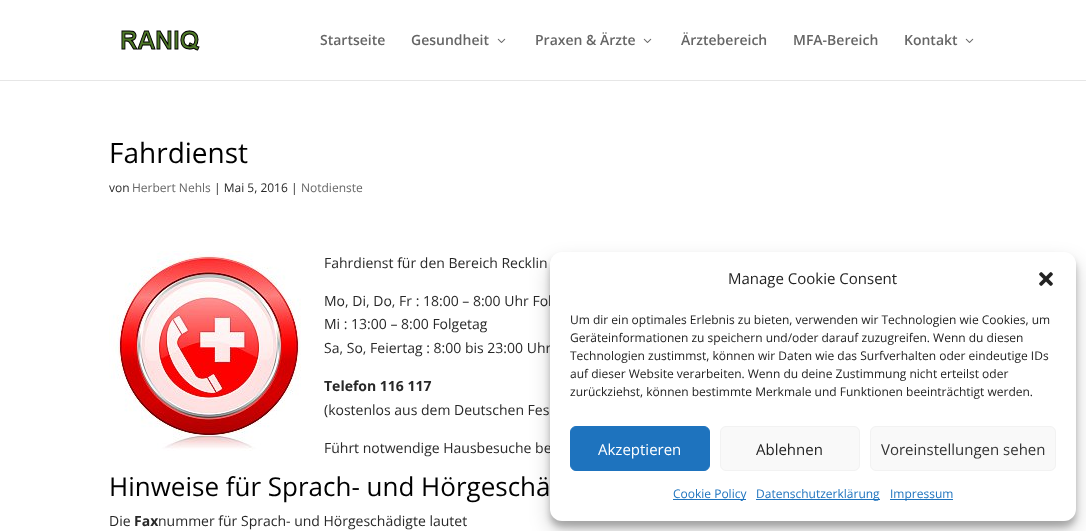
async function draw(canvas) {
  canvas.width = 1086;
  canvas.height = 531;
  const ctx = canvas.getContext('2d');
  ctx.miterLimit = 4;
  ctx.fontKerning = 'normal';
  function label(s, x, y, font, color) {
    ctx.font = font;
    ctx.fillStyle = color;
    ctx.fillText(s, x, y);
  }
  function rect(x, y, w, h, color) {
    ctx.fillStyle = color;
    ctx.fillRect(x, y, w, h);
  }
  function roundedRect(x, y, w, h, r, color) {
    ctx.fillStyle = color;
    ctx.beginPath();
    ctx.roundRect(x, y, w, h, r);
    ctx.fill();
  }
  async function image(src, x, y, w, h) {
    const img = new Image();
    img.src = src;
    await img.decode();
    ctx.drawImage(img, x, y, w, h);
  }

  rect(0, 0, 1086, 531, '#fff');
  rect(0, 80, 1086, 1, '#e6e6e6');
  await image('assets/img1.png', 121, 30, 79, 21);
  label('Startseite', 320, 45, '600 14px Open Sans', '#666');
  label('Gesundheit', 411, 45, '600 14px Open Sans', '#666');
  await image('assets/img2.png', 497, 38, 9, 5);
  label('Praxen & Ärzte', 535, 45, '600 14px Open Sans', '#666');
  await image('assets/img2.png', 643, 38, 9, 5);
  label('Ärztebereich', 681, 45, '600 14px Open Sans', '#666');
  label('MFA-Bereich', 793, 45, '600 14px Open Sans', '#666');
  label('Kontakt', 904, 45, '600 14px Open Sans', '#666');
  await image('assets/img2.png', 965, 38, 9, 5);
  label('Fahrdienst', 109, 163, '28px Open Sans', '#000');
  label('von', 109, 192, '12px Open Sans', '#282828');
  label('Herbert Nehls', 132, 192, '12px Open Sans', '#666');
  label('| Mai 5, 2016 |', 214, 192, '12px Open Sans', '#282828');
  label('Notdienste', 301, 192, '12px Open Sans', '#666');
  await image('assets/img3.png', 109, 251, 192, 200);
  label('Fahrdienst für den Bereich Recklin', 324, 268, '14px Open Sans', '#282828');
  label('Mo, Di, Do, Fr : 18:00 – 8:00 Uhr Fol', 324, 306, '14px Open Sans', '#282828');
  label('Mi : 13:00 – 8:00 Folgetag', 324, 329, '14px Open Sans', '#282828');
  label('Sa, So, Feiertag : 8:00 bis 23:00 Uhr', 324, 353, '14px Open Sans', '#282828');
  label('Telefon 116 117', 324, 391, 'bold 14px Open Sans', '#282828');
  label('(kostenlos aus dem Deutschen Fes', 324, 415, '14px Open Sans', '#282828');
  label('Führt notwendige Hausbesuche be', 324, 453, '14px Open Sans', '#282828');
  label('Hinweise für Sprach- und Hörgeschä', 109, 496, '26px Open Sans', '#000');
  label('Die', 109, 526, '14px Open Sans', '#282828');
  label('Fax', 134, 526, 'bold 14px Open Sans', '#282828');
  label('nummer für Sprach- und Hörgeschädigte lautet', 158, 526, '14px Open Sans', '#282828');
  ctx.fillStyle = '#0000003b';
  ctx.filter = 'blur(3px)';
  ctx.beginPath();
  ctx.roundRect(550, 258, 526, 269, 12);
  ctx.fill();
  ctx.filter = 'none';
  ctx.fillStyle = '#00000030';
  ctx.filter = 'blur(10px)';
  ctx.beginPath();
  ctx.roundRect(550, 262, 526, 269, 12);
  ctx.fill();
  ctx.filter = 'none';
  roundedRect(550, 252, 526, 269, 12, '#fff');
  label('Manage Cookie Consent', 728, 284, '15px Open Sans', '#222');
  await image('assets/img4.png', 1039, 272, 14, 14);
  label('Um dir ein optimales Erlebnis zu bieten, verwenden wir Technologien wie Cookies, um', 570, 324, '12px Open Sans', '#222');
  label('Geräteinformationen zu speichern und/oder darauf zuzugreifen. Wenn du diesen', 570, 342, '12px Open Sans', '#222');
  label('Technologien zustimmst, können wir Daten wie das Surfverhalten oder eindeutige IDs', 570, 360, '12px Open Sans', '#222');
  label('auf dieser Website verarbeiten. Wenn du deine Zustimmung nicht erteilst oder', 570, 378, '12px Open Sans', '#222');
  label('zurückziehst, können bestimmte Merkmale und Funktionen beeinträchtigt werden.', 570, 396, '12px Open Sans', '#222');
  ctx.fillStyle = '#1e73be';
  ctx.beginPath();
  ctx.roundRect(570.5, 426.5, 139, 44, 5.5);
  ctx.fill();
  ctx.strokeStyle = '#1e73be';
  ctx.stroke();
  label('Akzeptieren', 598, 455, '15px Open Sans', '#fff');
  ctx.fillStyle = '#f9f9f9';
  ctx.beginPath();
  ctx.roundRect(720.5, 426.5, 139, 44, 5.5);
  ctx.fill();
  ctx.strokeStyle = '#f2f2f2';
  ctx.stroke();
  label('Ablehnen', 756, 455, '15px Open Sans', '#222');
  ctx.fillStyle = '#f9f9f9';
  ctx.beginPath();
  ctx.roundRect(870.5, 426.5, 185, 44, 5.5);
  ctx.fill();
  ctx.stroke();
  label('Voreinstellungen sehen', 881, 455, '15px Open Sans', '#333');
  rect(673, 499, 73, 1, '#1e73be');
  label('Cookie Policy', 673, 498, '12px Open Sans', '#1e73be');
  rect(756, 499, 124, 1, '#1e73be');
  label('Datenschutzerklärung', 756, 498, '12px Open Sans', '#1e73be');
  rect(890, 499, 63, 1, '#1e73be');
  label('Impressum', 890, 498, '12px Open Sans', '#1e73be');
}

draw(document.querySelector('canvas'));
